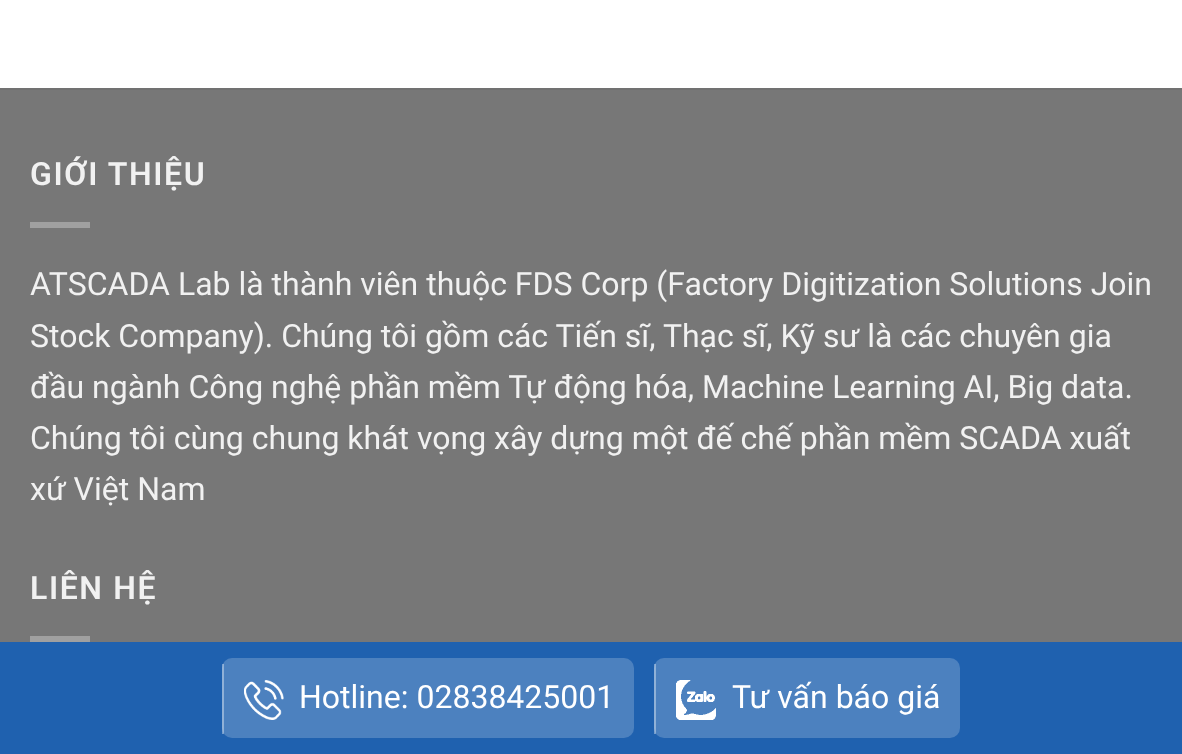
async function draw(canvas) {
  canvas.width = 1182;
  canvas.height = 754;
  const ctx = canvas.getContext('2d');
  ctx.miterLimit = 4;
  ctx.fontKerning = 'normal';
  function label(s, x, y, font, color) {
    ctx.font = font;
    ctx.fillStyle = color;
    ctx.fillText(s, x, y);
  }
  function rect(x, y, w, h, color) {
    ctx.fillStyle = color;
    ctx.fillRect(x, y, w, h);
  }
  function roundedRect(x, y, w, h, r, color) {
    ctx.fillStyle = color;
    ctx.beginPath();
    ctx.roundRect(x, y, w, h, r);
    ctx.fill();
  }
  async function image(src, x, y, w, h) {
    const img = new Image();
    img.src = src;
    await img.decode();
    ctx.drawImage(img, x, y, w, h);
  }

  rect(0, 0, 1182, 754, '#fff');
  rect(0, 90, 1182, 552, '#777');
  rect(0, 88, 1182, 2, '#717171');
  ctx.letterSpacing = '1.6px';
  label('GIỚI THIỆU', 30, 185, '600 32px Roboto', '#f1f1f1');
  rect(30, 222, 60, 6, '#a0a0a0');
  ctx.letterSpacing = '0px';
  label('ATSCADA Lab là thành viên thuộc FDS Corp (Factory Digitization Solutions Join', 30, 295, '32px Roboto', '#f1f1f1');
  label('Stock Company). Chúng tôi gồm các Tiến sĩ, Thạc sĩ, Kỹ sư là các chuyên gia', 30, 347, '32px Roboto', '#f1f1f1');
  label('đầu ngành Công nghệ phần mềm Tự động hóa, Machine Learning AI, Big data.', 30, 398, '32px Roboto', '#f1f1f1');
  label('Chúng tôi cùng chung khát vọng xây dựng một đế chế phần mềm SCADA xuất', 30, 449, '32px Roboto', '#f1f1f1');
  label('xứ Việt Nam', 30, 500, '32px Roboto', '#f1f1f1');
  ctx.letterSpacing = '1.6px';
  label('LIÊN HỆ', 30, 599, '600 32px Roboto', '#f1f1f1');
  rect(30, 636, 60, 6, '#a0a0a0');
  rect(0, 642, 1182, 112, '#1f61af');
  roundedRect(222, 658, 412, 80, 10, '#4c81bf');
  rect(222, 664, 2, 70, '#ffffff61');
  await image('assets/img1.png', 244, 680, 40, 40);
  ctx.letterSpacing = '0px';
  label('Hotline: 02838425001', 299, 708, '32px Roboto', '#fff');
  roundedRect(654, 658, 306, 80, 10, '#4c81bf');
  rect(654, 664, 2, 70, '#ffffff61');
  await image('assets/img2.png', 676, 680, 40, 40);
  label('Tư vấn báo giá', 732, 708, '32px Roboto', '#fff');
}

draw(document.querySelector('canvas'));
